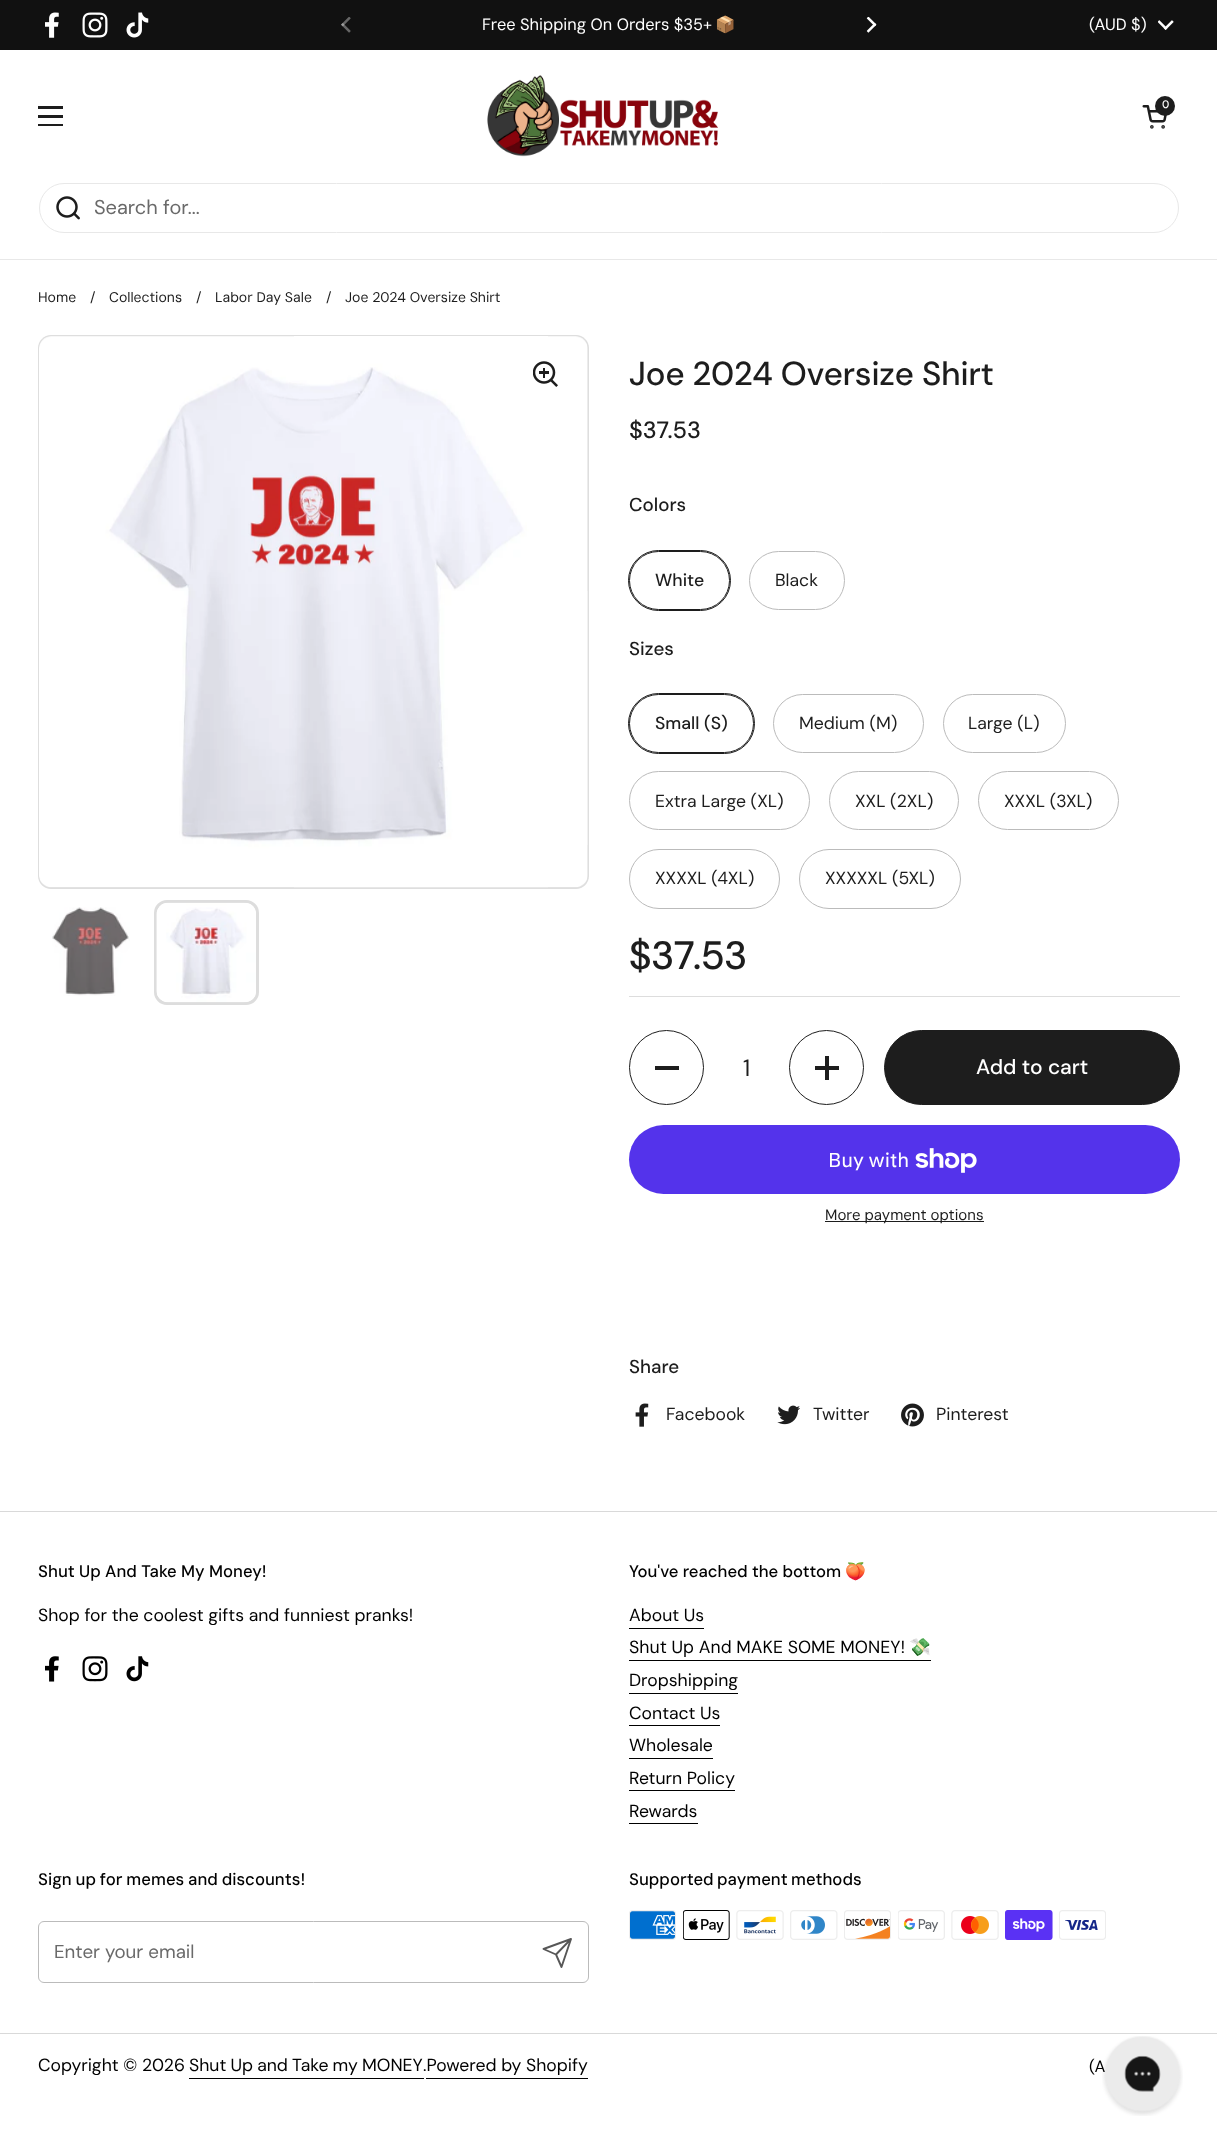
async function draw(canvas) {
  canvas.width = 1217;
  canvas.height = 2144;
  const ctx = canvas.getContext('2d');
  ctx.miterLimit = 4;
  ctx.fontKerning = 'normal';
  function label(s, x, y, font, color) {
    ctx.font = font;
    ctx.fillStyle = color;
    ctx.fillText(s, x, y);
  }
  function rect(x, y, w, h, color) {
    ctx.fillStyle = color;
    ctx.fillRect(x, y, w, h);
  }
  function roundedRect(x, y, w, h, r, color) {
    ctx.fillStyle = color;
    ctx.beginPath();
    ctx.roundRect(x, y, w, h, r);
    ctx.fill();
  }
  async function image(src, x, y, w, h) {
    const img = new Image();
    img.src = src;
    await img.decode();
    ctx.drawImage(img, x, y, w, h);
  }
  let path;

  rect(0, 0, 1217, 2144, '#fff');
  rect(0, 0, 1217, 50, '#111');
  await image('assets/img1.png', 45, 12, 14, 26);
  await image('assets/img2.png', 82, 12, 26, 26);
  await image('assets/img3.png', 126, 12, 23, 26);
  await image('assets/img4.png', 341, 17, 10, 16);
  label('Free Shipping On Orders $35+', 482, 30, '16.4px "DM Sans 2"', '#fff');
  label('📦', 715, 30, '16.4px "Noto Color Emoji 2"', '#fff');
  await image('assets/img5.png', 866, 16, 11, 17);
  label('(AUD $)', 1089, 30, '16.4px "DM Sans 2"', '#fff');
  await image('assets/img6.png', 1158, 20, 16, 10);
  await image('assets/img7.png', 487, 75, 231, 82);
  await image('assets/img8.png', 1142, 105, 25, 24);
  ctx.fillStyle = '#1d1d1d';
  ctx.beginPath();
  ctx.arc(1165, 106, 10, 0, 2 * Math.PI);
  ctx.fill();
  label('0', 1162, 108, '500 11px DM Sans', '#fff');
  rect(38, 106, 25, 3, '#1d1d1d');
  rect(38, 115, 25, 3, '#1d1d1d');
  rect(38, 124, 25, 2, '#1d1d1d');
  rect(0, 259, 1217, 1, '#e8e8e8');
  ctx.beginPath();
  ctx.roundRect(39.5, 183.5, 1139, 49, 24.5);
  ctx.strokeStyle = '#e8e8e8';
  ctx.stroke();
  await image('assets/img9.png', 56, 196, 24, 24);
  label('Search for...', 94, 214, '20px "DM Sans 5"', '#6a6a6a');
  label('Home', 38, 302, '14px "DM Sans 2"', '#1d1d1d');
  label('/', 90, 302, '14px "DM Sans 2"', '#1d1d1d');
  label('Collections', 109, 302, '14px "DM Sans 2"', '#1d1d1d');
  label('/', 196, 302, '14px "DM Sans 2"', '#1d1d1d');
  label('Labor Day Sale', 215, 302, '14px "DM Sans 2"', '#1d1d1d');
  label('/', 326, 302, '14px "DM Sans 2"', '#1d1d1d');
  label('Joe 2024 Oversize Shirt', 345, 302, '14px "DM Sans 2"', '#1d1d1d');
  ctx.fillStyle = '#dedede';
  path = new Path2D('M51 335H576C583 335 589 341 589 348V876C589 883 583 889 576 889H51C44 889 38 883 38 876V348C38 341 44 335 51 335Z');
  ctx.fill(path);
  await image('assets/img10.png', 39, 336, 549, 552);
  await image('assets/img11.png', 533, 361, 25, 26);
  await image('assets/img12.png', 52, 907, 78, 89);
  ctx.beginPath();
  ctx.roundRect(155.5, 901.5, 102, 102, 11.5);
  ctx.strokeStyle = '#ddd';
  ctx.lineWidth = 3;
  ctx.stroke();
  await image('assets/img13.png', 156, 902, 100, 101);
  label('Joe 2024 Oversize Shirt', 629, 385, '500 33.25px "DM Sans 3"', '#1d1d1d');
  label('$37.53', 629, 438, '500 23.5px "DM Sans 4"', '#1d1d1d');
  label('Colors', 629, 511, '500 18.75px "DM Sans 5"', '#1d1d1d');
  ctx.beginPath();
  ctx.roundRect(628.5, 550.5, 102, 60, 30);
  ctx.strokeStyle = '#1d1d1d';
  ctx.lineWidth = 1;
  ctx.stroke();
  ctx.beginPath();
  ctx.roundRect(629.5, 551.5, 100, 58, 29);
  ctx.stroke();
  label('White', 655, 586, '500 17.6px "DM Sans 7"', '#1d1d1d');
  ctx.beginPath();
  ctx.roundRect(749.5, 551.5, 95, 58, 29);
  ctx.strokeStyle = '#bbb';
  ctx.stroke();
  label('Black', 775, 586, '17.6px DM Sans', '#1d1d1d');
  label('Sizes', 629, 655, '500 18.75px "DM Sans 5"', '#1d1d1d');
  ctx.beginPath();
  ctx.roundRect(628.5, 693.5, 126, 60, 30);
  ctx.strokeStyle = '#1d1d1d';
  ctx.stroke();
  ctx.beginPath();
  ctx.roundRect(629.5, 694.5, 124, 58, 29);
  ctx.stroke();
  label('Small (S)', 655, 729, '500 17.6px "DM Sans 7"', '#1d1d1d');
  ctx.beginPath();
  ctx.roundRect(773.5, 694.5, 150, 58, 29);
  ctx.strokeStyle = '#bbb';
  ctx.stroke();
  label('Medium (M)', 799, 729, '17.6px DM Sans', '#1d1d1d');
  ctx.beginPath();
  ctx.roundRect(943.5, 694.5, 122, 58, 29);
  ctx.stroke();
  label('Large (L)', 968, 729, '17.6px DM Sans', '#1d1d1d');
  ctx.beginPath();
  ctx.roundRect(629.5, 771.5, 180, 58, 29);
  ctx.stroke();
  label('Extra Large (XL)', 655, 807, '17.6px DM Sans', '#1d1d1d');
  ctx.beginPath();
  ctx.roundRect(829.5, 771.5, 129, 58, 29);
  ctx.stroke();
  label('XXL (2XL)', 855, 807, '17.6px DM Sans', '#1d1d1d');
  ctx.beginPath();
  ctx.roundRect(978.5, 771.5, 140, 58, 29);
  ctx.stroke();
  label('XXXL (3XL)', 1004, 807, '17.6px DM Sans', '#1d1d1d');
  ctx.beginPath();
  ctx.roundRect(629.5, 849.5, 150, 59, 29.5);
  ctx.stroke();
  label('XXXXL (4XL)', 655, 884, '17.6px DM Sans', '#1d1d1d');
  ctx.beginPath();
  ctx.roundRect(799.5, 849.5, 161, 59, 29.5);
  ctx.stroke();
  label('XXXXXL (5XL)', 825, 884, '17.6px DM Sans', '#1d1d1d');
  label('$37.53', 629, 969, '500 39.5px "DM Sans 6"', '#1d1d1d');
  rect(629, 996, 551, 1, '#ddd');
  ctx.beginPath();
  ctx.arc(666.5, 1067.5, 37, 0, 2 * Math.PI);
  ctx.strokeStyle = '#1d1d1d';
  ctx.stroke();
  rect(655, 1066, 24, 4, '#1d1d1d');
  label('1', 743, 1076, '23.5px "DM Sans 3"', '#1d1d1d');
  ctx.beginPath();
  ctx.arc(826.5, 1067.5, 37, 0, 2 * Math.PI);
  ctx.stroke();
  rect(825, 1056, 4, 24, '#1d1d1d');
  rect(815, 1066, 24, 4, '#1d1d1d');
  ctx.beginPath();
  ctx.roundRect(884.5, 1030.5, 295, 74, 37);
  ctx.fill();
  ctx.stroke();
  label('Add to cart', 976, 1074, '500 21px "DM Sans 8"', '#fff');
  roundedRect(629, 1125, 551, 69, 34.5, '#5433eb');
  label('Buy with', 828, 1167, '20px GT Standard', '#fff');
  await image('assets/img14.png', 915, 1148, 62, 25);
  rect(825, 1221, 159, 1, '#1d1d1d');
  label('More payment options', 825, 1220, '15px "DM Sans 2"', '#1d1d1d');
  label('Share', 629, 1373, '500 18.75px "DM Sans 5"', '#1d1d1d');
  await image('assets/img15.png', 635, 1403, 14, 24);
  label('Facebook', 666, 1420, '17.6px DM Sans', '#1d1d1d');
  await image('assets/img16.png', 777, 1405, 23, 20);
  label('Twitter', 813, 1420, '17.6px DM Sans', '#1d1d1d');
  await image('assets/img17.png', 901, 1403, 23, 24);
  label('Pinterest', 936, 1420, '17.6px DM Sans', '#1d1d1d');
  rect(0, 1511, 1217, 1, '#d9d9d9');
  label('Shut Up And Take My Money!', 38, 1577, '500 16.7px DM Sans', '#000');
  label('Shop for the coolest gifts and funniest pranks!', 38, 1621, '17.6px DM Sans', '#000');
  await image('assets/img18.png', 45, 1656, 14, 26);
  await image('assets/img19.png', 82, 1656, 26, 26);
  await image('assets/img20.png', 126, 1656, 23, 26);
  label('You\'ve reached the bottom', 629, 1577, '500 16.7px "DM Sans 2"', '#000');
  label('🍑', 845, 1577, '16.7px Noto Color Emoji', '#000');
  label('About Us', 629, 1621, '17.6px DM Sans', '#000');
  rect(629, 1628, 75, 1, '#000');
  label('Shut Up And MAKE SOME MONEY!', 629, 1653, '17.6px "DM Sans 2"', '#000');
  rect(629, 1660, 302, 1, '#000');
  label('💸', 909, 1653, '17.6px "Noto Color Emoji 2"', '#000');
  label('Dropshipping', 629, 1686, '17.6px DM Sans', '#000');
  rect(629, 1693, 109, 1, '#000');
  label('Contact Us', 629, 1719, '17.6px DM Sans', '#000');
  rect(629, 1725, 91, 1, '#000');
  label('Wholesale', 629, 1751, '17.6px DM Sans', '#000');
  rect(629, 1758, 84, 1, '#000');
  label('Return Policy', 629, 1784, '17.6px DM Sans', '#000');
  rect(629, 1790, 106, 1, '#000');
  label('Rewards', 629, 1817, '17.6px DM Sans', '#000');
  rect(629, 1823, 69, 1, '#000');
  ctx.wordSpacing = '-0.5px';
  label('Sign up for memes and discounts!', 38, 1885, '500 16.7px DM Sans', '#000');
  ctx.beginPath();
  ctx.roundRect(38.5, 1921.5, 550, 61, 5.5);
  ctx.strokeStyle = '#bbb';
  ctx.stroke();
  ctx.wordSpacing = '0px';
  label('Enter your email', 54, 1958, '18.75px "DM Sans 4"', '#6a6a6a');
  path = new Path2D('M571 1939L556 1954.5M571 1939L561.5 1967L556 1954.5L543.5 1949Z');
  ctx.strokeStyle = '#575757';
  ctx.lineWidth = 1.9;
  ctx.lineCap = 'round';
  ctx.lineJoin = 'round';
  ctx.stroke(path);
  ctx.wordSpacing = '-1px';
  label('Supported payment methods', 629, 1885, '500 16.7px DM Sans', '#000');
  await image('assets/img21.png', 629, 1910, 47, 30);
  await image('assets/img22.png', 683, 1910, 47, 30);
  await image('assets/img23.png', 736, 1910, 48, 30);
  await image('assets/img24.png', 790, 1910, 48, 30);
  await image('assets/img25.png', 844, 1910, 47, 30);
  await image('assets/img26.png', 898, 1910, 47, 30);
  await image('assets/img27.png', 951, 1910, 48, 30);
  await image('assets/img28.png', 1005, 1910, 48, 30);
  await image('assets/img29.png', 1059, 1910, 47, 30);
  rect(0, 2033, 1217, 1, '#d9d9d9');
  ctx.wordSpacing = '0px';
  label('Copyright © 2026', 38, 2071, '17.6px DM Sans', '#000');
  ctx.wordSpacing = '-0.5px';
  label('Shut Up and Take my MONEY', 189, 2071, '17.6px DM Sans', '#000');
  rect(189, 2078, 235, 1, '#000');
  ctx.wordSpacing = '0px';
  label('.Powered by Shopify', 423, 2071, '17.6px DM Sans', '#000');
  rect(426, 2078, 162, 1, '#000');
  label('(A', 1089, 2072, '16.4px "DM Sans 2"', '#000');
  await image('assets/img30.png', 1102, 2036, 81, 80);
}

draw(document.querySelector('canvas'));
